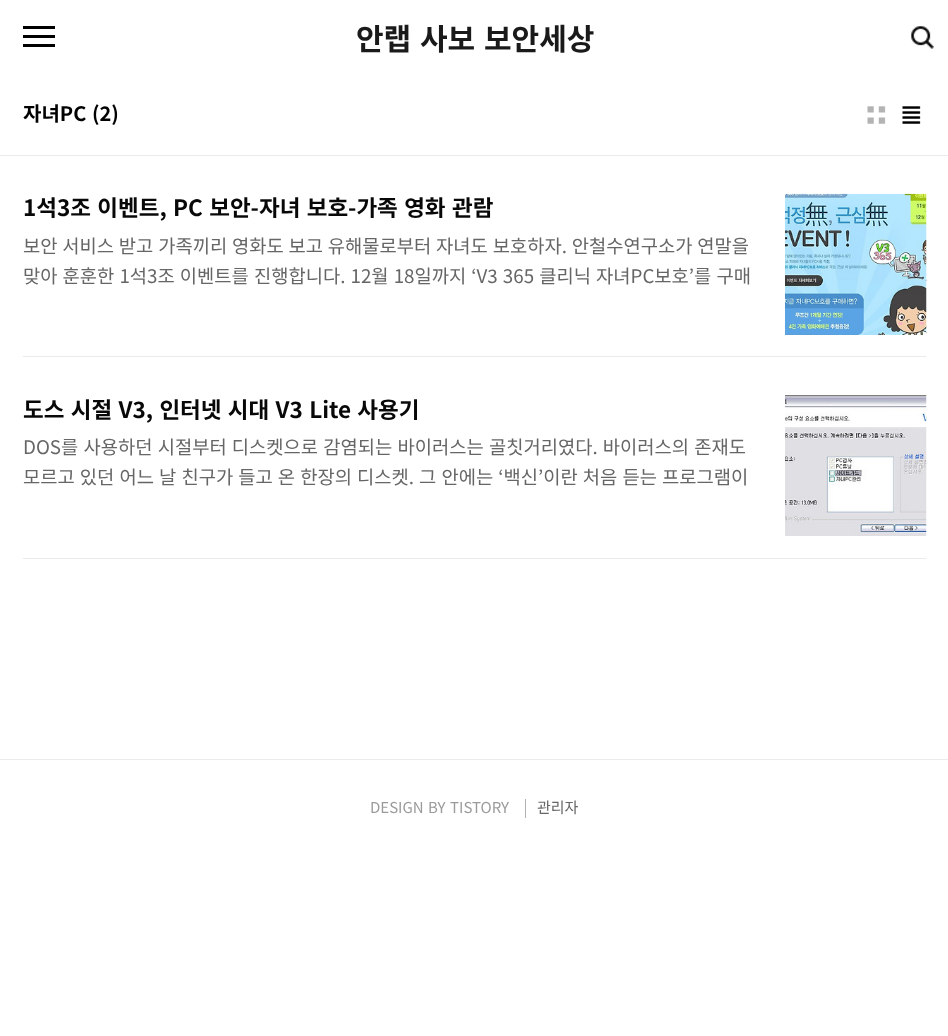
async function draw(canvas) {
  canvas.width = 948;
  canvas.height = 1036;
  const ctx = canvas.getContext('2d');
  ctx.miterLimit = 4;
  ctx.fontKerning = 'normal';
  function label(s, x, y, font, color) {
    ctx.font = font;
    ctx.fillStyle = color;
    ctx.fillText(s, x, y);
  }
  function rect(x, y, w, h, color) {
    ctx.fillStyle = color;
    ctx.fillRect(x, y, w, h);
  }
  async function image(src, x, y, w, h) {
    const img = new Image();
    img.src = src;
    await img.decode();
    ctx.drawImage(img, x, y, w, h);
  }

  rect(0, 0, 948, 1036, '#fff');
  rect(23, 26, 32, 3, '#000');
  rect(23, 35, 32, 3, '#000');
  rect(23, 44, 32, 3, '#000');
  ctx.wordSpacing = '2px';
  label('안랩 사보 보안세상', 356, 50, 'bold 30px Noto Sans KR', '#1a1a1a');
  await image('assets/img1.png', 911, 26, 23, 23);
  rect(0, 155, 948, 1, '#ebebeb');
  ctx.wordSpacing = '0px';
  label('자녀PC', 23, 121, 'bold 20px Noto Sans KR', '#000');
  label('(2)', 92, 121, 'bold 20px Noto Sans KR', '#000');
  await image('assets/img2.png', 867, 106, 19, 18);
  await image('assets/img3.png', 902, 106, 19, 18);
  rect(23, 356, 903, 1, '#ebebeb');
  ctx.wordSpacing = '1.25px';
  label('1석3조 이벤트, PC 보안-자녀 보호-가족 영화 관람', 23, 216, 'bold 22.5px Noto Sans KR', '#080808');
  await image('assets/img4.png', 785, 193, 142, 142);
  ctx.wordSpacing = '0.6px';
  label('보안 서비스 받고 가족끼리 영화도 보고 유해물로부터 자녀도 보호하자. 안철수연구소가 연말을', 23, 253, '18.75px Noto Sans KR', '#666');
  ctx.wordSpacing = '0.9px';
  label('맞아 훈훈한 1석3조 이벤트를 진행합니다. 12월 18일까지 ‘V3 365 클리닉 자녀PC보호’를 구매', 23, 283, '18.75px Noto Sans KR', '#666');
  rect(23, 558, 903, 1, '#ebebeb');
  ctx.wordSpacing = '1.25px';
  label('도스 시절 V3, 인터넷 시대 V3 Lite 사용기', 23, 418, 'bold 22.5px Noto Sans KR', '#080808');
  await image('assets/img5.png', 785, 395, 142, 141);
  ctx.wordSpacing = '1px';
  label('DOS를 사용하던 시절부터 디스켓으로 감염되는 바이러스는 골칫거리였다. 바이러스의 존재도', 23, 454, '18.75px Noto Sans KR', '#666');
  ctx.wordSpacing = '0.9px';
  label('모르고 있던 어느 날 친구가 들고 온 한장의 디스켓. 그 안에는 ‘백신’이란 처음 듣는 프로그램이', 23, 484, '18.75px Noto Sans KR', '#666');
  rect(0, 759, 948, 1, '#ebebeb');
  ctx.wordSpacing = '1px';
  label('DESIGN BY', 370, 813, '15px Noto Sans KR', '#9b9b9b');
  ctx.wordSpacing = '0px';
  label('TISTORY', 450, 813, '15px Noto Sans KR', '#9b9b9b');
  rect(525, 799, 1, 19, '#b2b2b2');
  label('관리자', 537, 813, '15px Noto Sans KR', '#666');
}

draw(document.querySelector('canvas'));
